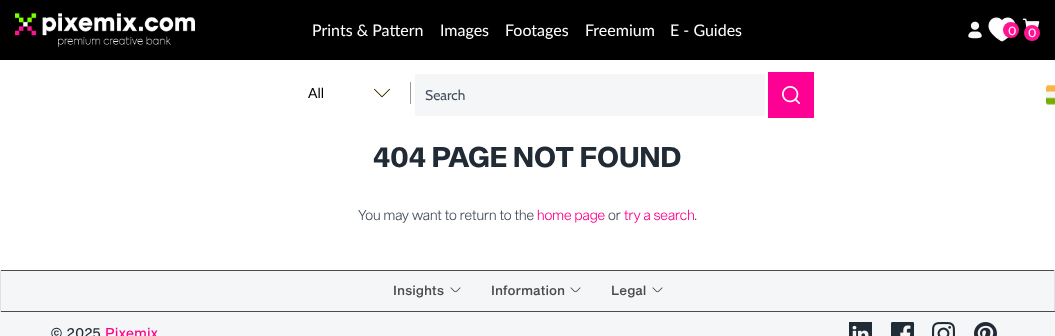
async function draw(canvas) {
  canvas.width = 1055;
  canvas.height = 336;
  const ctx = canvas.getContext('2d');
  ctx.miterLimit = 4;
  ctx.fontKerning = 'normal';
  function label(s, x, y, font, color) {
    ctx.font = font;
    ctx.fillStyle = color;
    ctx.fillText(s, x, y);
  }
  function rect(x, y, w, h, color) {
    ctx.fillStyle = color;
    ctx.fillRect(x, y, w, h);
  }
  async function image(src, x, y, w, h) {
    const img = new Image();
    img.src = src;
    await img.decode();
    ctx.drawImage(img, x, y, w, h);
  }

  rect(0, 0, 1055, 336, '#f4f6f8');
  rect(0, 0, 1055, 60, '#000');
  await image('assets/img1.png', 15, 13, 180, 35);
  label('Prints & Pattern', 312, 36, '16px Lato', '#fff');
  label('Images', 440, 36, '16px Lato', '#fff');
  label('Footages', 505, 36, '16px Lato', '#fff');
  label('Freemium', 585, 36, '16px Lato', '#fff');
  label('E - Guides', 670, 36, '16px Lato', '#fff');
  await image('assets/img2.png', 968, 21, 14, 18);
  await image('assets/img3.png', 988, 17, 28, 25);
  ctx.fillStyle = '#ff1393';
  ctx.beginPath();
  ctx.arc(1011, 30, 8, 0, 2 * Math.PI);
  ctx.fill();
  label('0', 1008, 35, '12px Cabin', '#fff');
  await image('assets/img4.png', 1022, 18, 18, 10);
  ctx.fillStyle = '#ff1393';
  ctx.beginPath();
  ctx.arc(1032, 33, 8, 0, 2 * Math.PI);
  ctx.fill();
  label('0', 1028, 37, '12px Cabin', '#fff');
  rect(0, 60, 1055, 210, '#fff');
  rect(410, 82, 1, 22, '#9a9a9a');
  label('All', 308, 98, '14px Lato', '#000');
  await image('assets/img5.png', 374, 88, 16, 10);
  rect(415, 74, 350, 42, '#f4f6f8');
  label('Search', 425, 100, '14px Cabin', '#454f5b');
  rect(768, 72, 46, 46, '#ff0095');
  await image('assets/img6.png', 782, 86, 18, 18);
  await image('assets/img7.png', 1046, 85, 9, 20);
  label('404 PAGE NOT FOUND', 373, 167, 'bold 28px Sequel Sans', '#212b36');
  label('You may want to return to the', 358, 220, '300 14px Sequel Sans', '#454f5b');
  label('home page', 537, 220, '300 14px Sequel Sans', '#ff008b');
  label('or', 608, 220, '300 14px Sequel Sans', '#454f5b');
  label('try a search', 624, 220, '300 14px Sequel Sans', '#ff008b');
  label('.', 694, 220, '300 14px Sequel Sans', '#454f5b');
  rect(0, 270, 1055, 1, '#4b4b4b');
  rect(1054, 270, 1, 42, '#dee2e6');
  rect(0, 311, 1055, 1, '#4b4b4b');
  rect(0, 270, 1, 42, '#dee2e6');
  label('Insights', 393, 295, '500 13px Sequel Sans', '#4b4b4b');
  await image('assets/img8.png', 450, 287, 11, 6);
  label('Information', 491, 295, '500 13px Sequel Sans', '#4b4b4b');
  await image('assets/img8.png', 570, 287, 11, 6);
  label('Legal', 611, 295, '500 13px Sequel Sans', '#4b4b4b');
  await image('assets/img8.png', 652, 287, 11, 6);
  label('© 2025', 50, 338, '14px Sequel Sans', '#212b36');
  label('Pixemix', 105, 338, '14px Sequel Sans', '#ff008b');
  await image('assets/img9.png', 849, 322, 23, 14);
  await image('assets/img10.png', 891, 322, 23, 14);
  await image('assets/img11.png', 932, 322, 23, 14);
  await image('assets/img12.png', 974, 322, 23, 14);
}

draw(document.querySelector('canvas'));
